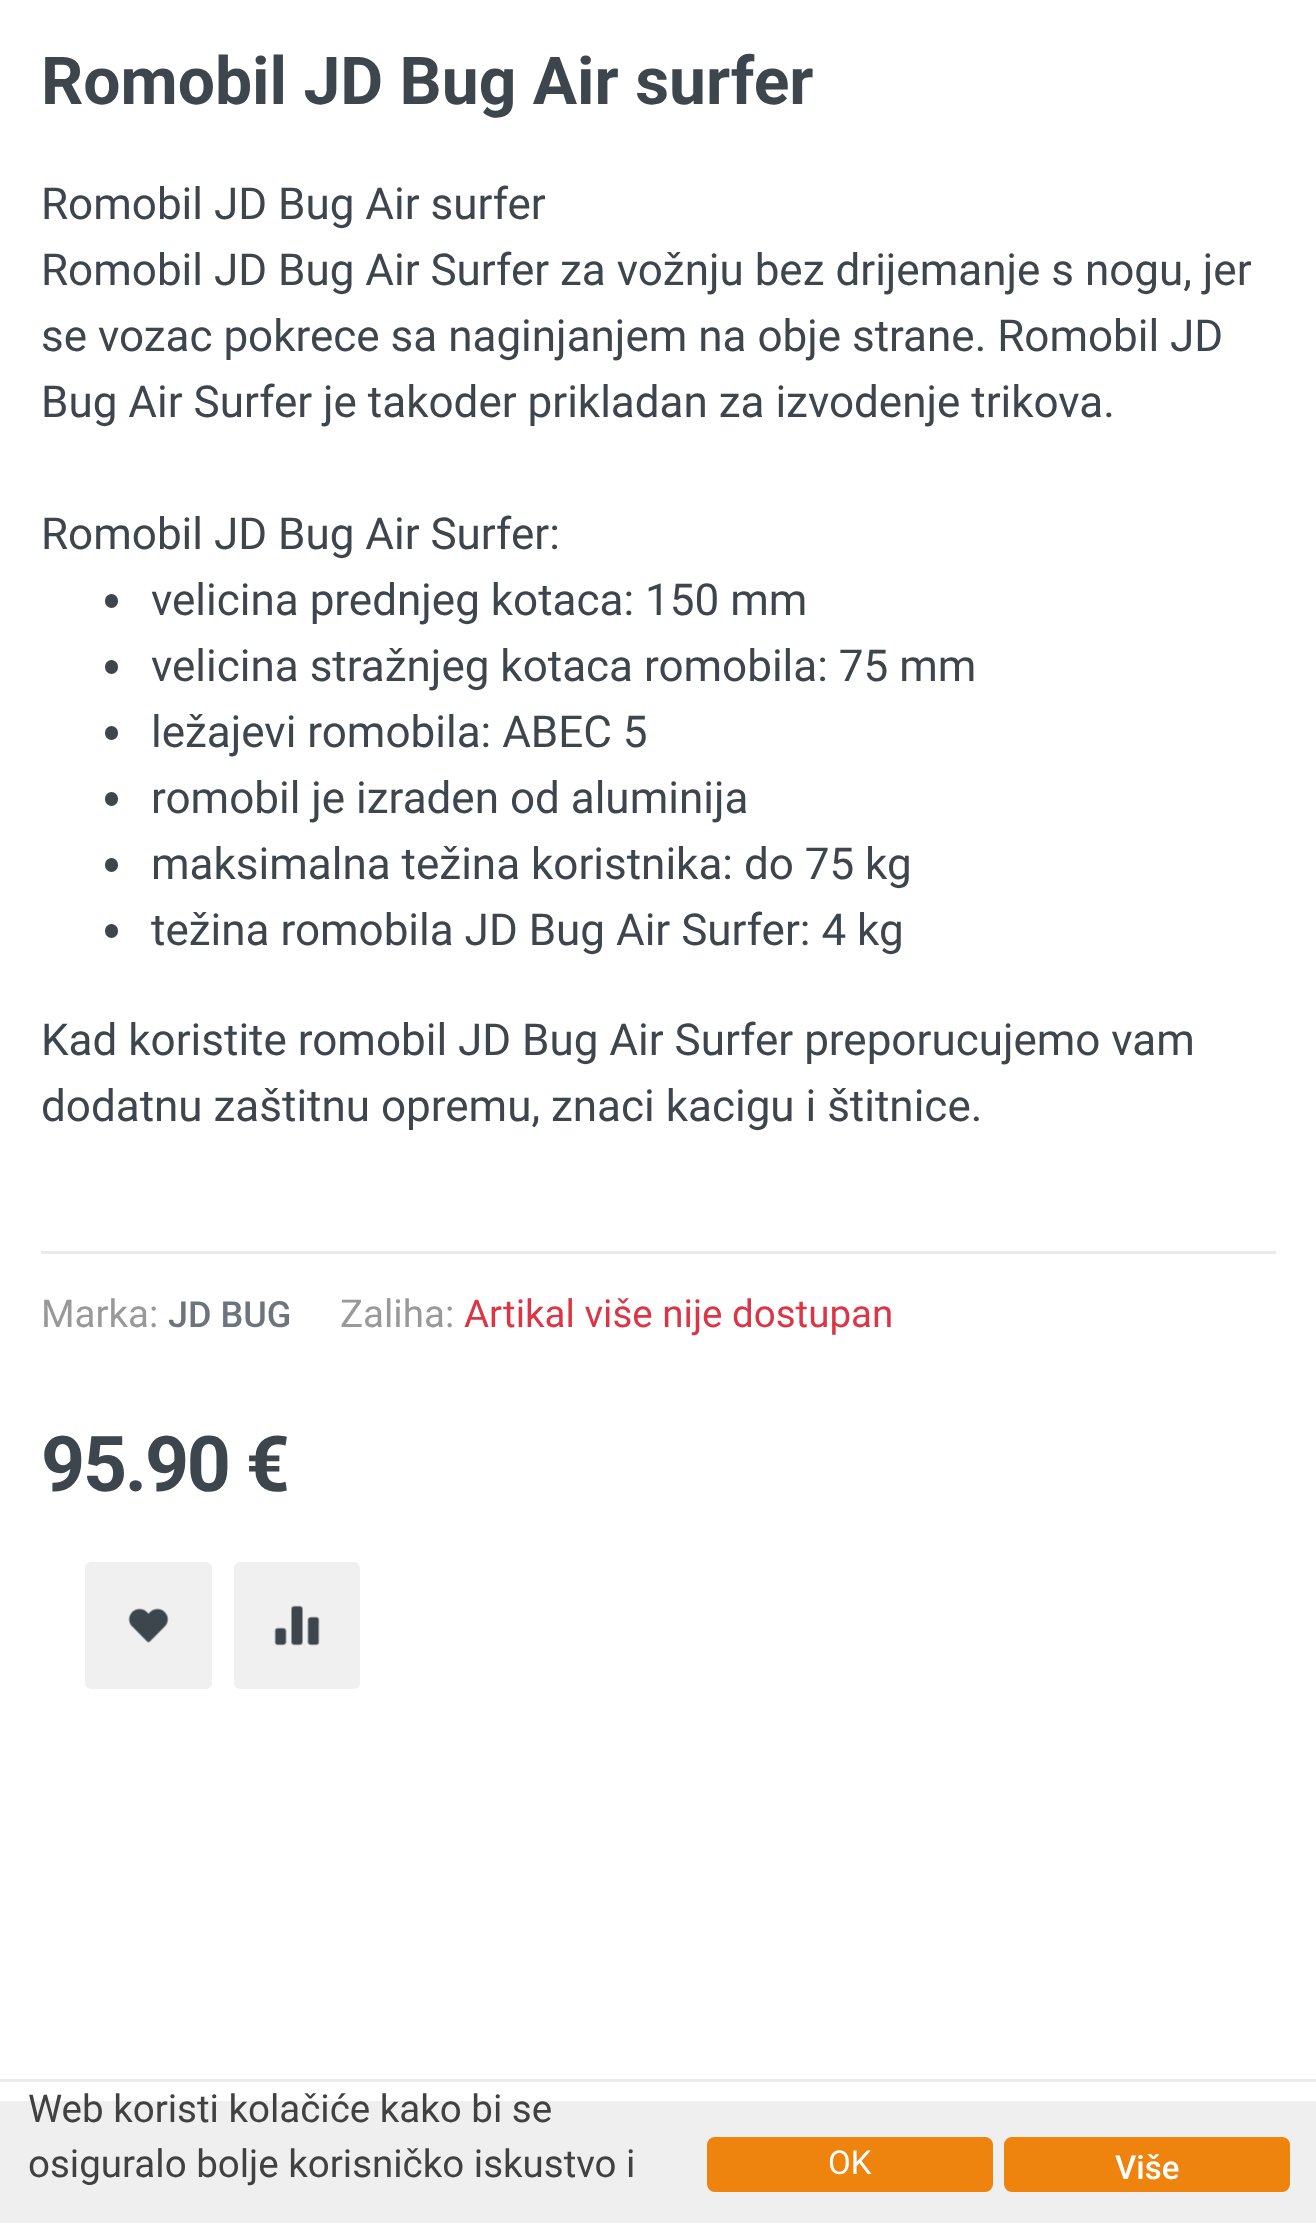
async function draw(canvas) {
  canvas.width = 1316;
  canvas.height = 2223;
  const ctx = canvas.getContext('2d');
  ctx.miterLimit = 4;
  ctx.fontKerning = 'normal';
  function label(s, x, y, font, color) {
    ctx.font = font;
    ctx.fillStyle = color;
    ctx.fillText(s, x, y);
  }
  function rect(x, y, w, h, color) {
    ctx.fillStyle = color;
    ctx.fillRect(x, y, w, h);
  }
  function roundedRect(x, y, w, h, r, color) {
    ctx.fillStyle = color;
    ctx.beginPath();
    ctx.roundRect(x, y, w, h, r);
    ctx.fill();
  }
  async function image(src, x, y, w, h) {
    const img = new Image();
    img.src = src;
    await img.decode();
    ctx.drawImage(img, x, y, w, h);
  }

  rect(0, 0, 1316, 2223, '#fff');
  label('Romobil JD Bug Air surfer', 41, 104, 'bold 66px Roboto', '#3d464d');
  label('Romobil JD Bug Air surfer', 41, 219, '44px Roboto', '#3d464d');
  label('Romobil JD Bug Air Surfer za vožnju bez drijemanje s nogu, jer', 41, 285, '44px Roboto', '#3d464d');
  label('se vozac pokrece sa naginjanjem na obje strane. Romobil JD', 41, 351, '44px Roboto', '#3d464d');
  label('Bug Air Surfer je takoder prikladan za izvodenje trikova.', 41, 417, '44px Roboto', '#3d464d');
  label('Romobil JD Bug Air Surfer:', 41, 549, '44px Roboto', '#3d464d');
  roundedRect(105, 594, 13, 14, 6.5, '#3d464d');
  label('velicina prednjeg kotaca: 150 mm', 151, 615, '44px Roboto', '#3d464d');
  roundedRect(105, 660, 13, 14, 6.5, '#3d464d');
  label('velicina stražnjeg kotaca romobila: 75 mm', 151, 681, '44px Roboto', '#3d464d');
  roundedRect(105, 726, 13, 14, 6.5, '#3d464d');
  label('ležajevi romobila: ABEC 5', 151, 747, '44px Roboto', '#3d464d');
  roundedRect(105, 792, 13, 14, 6.5, '#3d464d');
  label('romobil je izraden od aluminija', 151, 813, '44px Roboto', '#3d464d');
  roundedRect(105, 858, 13, 14, 6.5, '#3d464d');
  label('maksimalna težina koristnika: do 75 kg', 151, 879, '44px Roboto', '#3d464d');
  roundedRect(105, 924, 13, 14, 6.5, '#3d464d');
  label('težina romobila JD Bug Air Surfer: 4 kg', 151, 945, '44px Roboto', '#3d464d');
  label('Kad koristite romobil JD Bug Air Surfer preporucujemo vam', 41, 1055, '44px Roboto', '#3d464d');
  label('dodatnu zaštitnu opremu, znaci kacigu i štitnice.', 41, 1121, '44px Roboto', '#3d464d');
  rect(41, 1251, 1235, 3, '#ebebeb');
  label('Marka:', 41, 1327, '38.5px Roboto', '#999');
  label('JD BUG', 168, 1327, '500 36px Roboto', '#6c757d');
  label('Zaliha:', 340, 1327, '38.5px Roboto', '#999');
  label('Artikal više nije dostupan', 464, 1327, '38.5px Roboto', '#dc3545');
  ctx.letterSpacing = '-2.25px';
  label('95.90 €', 41, 1491, 'bold 77px Roboto', '#3d464d');
  ctx.fillStyle = '#f0f0f0';
  ctx.beginPath();
  ctx.roundRect(86.5, 1563.5, 124, 124, 4.5);
  ctx.fill();
  ctx.strokeStyle = '#f0f0f0';
  ctx.lineWidth = 3;
  ctx.stroke();
  await image('assets/img1.png', 128, 1608, 41, 35);
  ctx.beginPath();
  ctx.roundRect(235.5, 1563.5, 123, 124, 4.5);
  ctx.fill();
  ctx.stroke();
  await image('assets/img2.png', 274, 1605, 46, 41);
  rect(0, 2079, 1316, 3, '#ebebeb');
  rect(0, 2101, 1316, 122, '#efefef');
  ctx.letterSpacing = '0px';
  label('Web koristi kolačiće kako bi se', 28, 2122, '38.5px Roboto', '#414141');
  label('osiguralo bolje korisničko iskustvo i', 28, 2177, '38.5px Roboto', '#414141');
  ctx.fillStyle = '#ee830d';
  ctx.beginPath();
  ctx.roundRect(708.5, 2138.5, 283, 52, 6.5);
  ctx.fill();
  ctx.strokeStyle = '#ee830d';
  ctx.stroke();
  label('OK', 828, 2174, '33px Roboto', '#fff');
  ctx.fillStyle = '#ee830d';
  ctx.beginPath();
  ctx.roundRect(1005.5, 2138.5, 283, 52, 6.5);
  ctx.fill();
  ctx.stroke();
  label('Više', 1115, 2179, '500 33px Roboto', '#fff');
}

draw(document.querySelector('canvas'));
